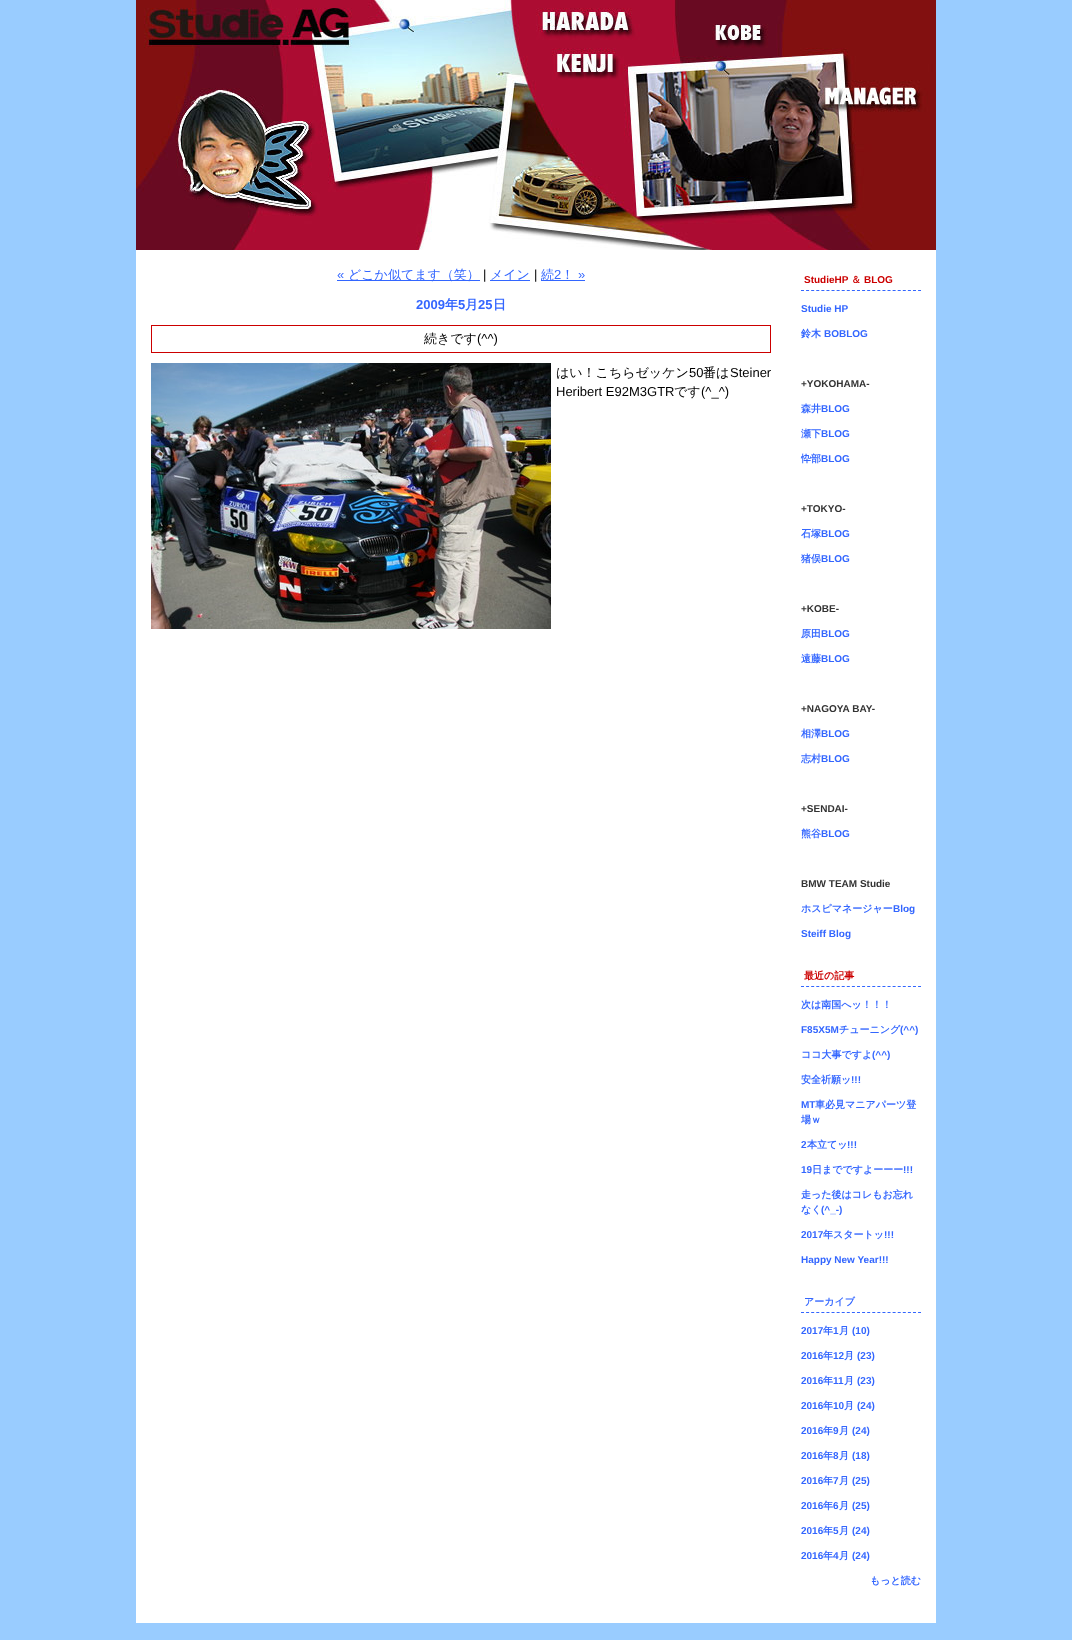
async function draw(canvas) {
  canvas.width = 1072;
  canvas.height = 1640;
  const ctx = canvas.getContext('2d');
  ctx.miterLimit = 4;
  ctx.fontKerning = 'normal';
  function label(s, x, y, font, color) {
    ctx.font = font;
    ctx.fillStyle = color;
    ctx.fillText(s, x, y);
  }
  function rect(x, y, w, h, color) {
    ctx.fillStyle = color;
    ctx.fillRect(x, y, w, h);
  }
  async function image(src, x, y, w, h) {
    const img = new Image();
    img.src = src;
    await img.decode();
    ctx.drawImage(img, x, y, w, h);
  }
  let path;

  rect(0, 0, 1072, 1640, '#9cf');
  rect(136, 250, 800, 1373, '#fff');
  await image('assets/img1.png', 136, 0, 800, 250);
  label('«', 337, 279, '13px Liberation Sans', '#36f');
  rect(337, 280, 143, 1, '#36f');
  label('どこか似てます（笑）', 348, 279, '500 13px WenQuanYi Zen Hei', '#36f');
  label('|', 483, 279, '13px Liberation Sans', '#000');
  rect(490, 280, 40, 1, '#36f');
  label('メイン', 490, 279, '500 13px WenQuanYi Zen Hei', '#36f');
  label('|', 534, 279, '13px Liberation Sans', '#000');
  rect(541, 280, 44, 1, '#36f');
  label('続', 541, 279, '500 13px WenQuanYi Zen Hei', '#36f');
  label('2', 554, 279, '13px Liberation Sans', '#36f');
  label('！', 561, 279, '500 13px WenQuanYi Zen Hei', '#36f');
  label('»', 578, 279, '13px Liberation Sans', '#36f');
  label('2009', 416, 309, 'bold 13px Liberation Sans', '#36f');
  label('年', 445, 309, 'bold 13px WenQuanYi Zen Hei', '#36f');
  label('5', 458, 309, 'bold 13px Liberation Sans', '#36f');
  label('月', 465, 309, 'bold 13px WenQuanYi Zen Hei', '#36f');
  label('25', 478, 309, 'bold 13px Liberation Sans', '#36f');
  label('日', 493, 309, 'bold 13px WenQuanYi Zen Hei', '#36f');
  ctx.strokeStyle = '#c00';
  ctx.strokeRect(151.5, 325.5, 619, 27);
  label('続きです', 424, 343, '500 13px WenQuanYi Zen Hei', '#000');
  label('(^^)', 477, 343, '13px Liberation Sans', '#000');
  await image('assets/img2.png', 151, 363, 400, 266);
  label('はい！こちらゼッケン', 556, 377, '500 13px WenQuanYi Zen Hei', '#000');
  label('50', 689, 377, '13px Liberation Sans', '#000');
  label('番は', 703, 377, '500 13px WenQuanYi Zen Hei', '#000');
  label('Steiner', 730, 377, '13px Liberation Sans', '#000');
  label('Heribert E92M3GTR', 556, 396, '13px Liberation Sans', '#000');
  label('です', 674, 396, '500 13px WenQuanYi Zen Hei', '#000');
  label('(^_^)', 701, 396, '13px Liberation Sans', '#000');
  path = new Path2D('M801 290.5H921');
  ctx.strokeStyle = '#36f';
  ctx.setLineDash([3, 2.09]);
  ctx.stroke(path);
  label('StudieHP', 804, 283, 'bold 10px Liberation Sans', '#c00');
  label('＆', 851, 283, 'bold 10px WenQuanYi Zen Hei', '#c00');
  label('BLOG', 864, 283, 'bold 10px Liberation Sans', '#c00');
  label('Studie HP', 801, 312, 'bold 10px Liberation Sans', '#36f');
  label('鈴木', 801, 337, 'bold 10px WenQuanYi Zen Hei', '#36f');
  label('BOBLOG', 824, 337, 'bold 10px Liberation Sans', '#36f');
  label('+YOKOHAMA-', 801, 387, 'bold 10px Liberation Sans', '#333');
  label('森井', 801, 412, 'bold 10px WenQuanYi Zen Hei', '#36f');
  label('BLOG', 821, 412, 'bold 10px Liberation Sans', '#36f');
  label('瀬下', 801, 437, 'bold 10px WenQuanYi Zen Hei', '#36f');
  label('BLOG', 821, 437, 'bold 10px Liberation Sans', '#36f');
  label('忰部', 801, 462, 'bold 10px WenQuanYi Zen Hei', '#36f');
  label('BLOG', 821, 462, 'bold 10px Liberation Sans', '#36f');
  label('+TOKYO-', 801, 512, 'bold 10px Liberation Sans', '#333');
  label('石塚', 801, 537, 'bold 10px WenQuanYi Zen Hei', '#36f');
  label('BLOG', 821, 537, 'bold 10px Liberation Sans', '#36f');
  label('猪俣', 801, 562, 'bold 10px WenQuanYi Zen Hei', '#36f');
  label('BLOG', 821, 562, 'bold 10px Liberation Sans', '#36f');
  label('+KOBE-', 801, 612, 'bold 10px Liberation Sans', '#333');
  label('原田', 801, 637, 'bold 10px WenQuanYi Zen Hei', '#36f');
  label('BLOG', 821, 637, 'bold 10px Liberation Sans', '#36f');
  label('遠藤', 801, 662, 'bold 10px WenQuanYi Zen Hei', '#36f');
  label('BLOG', 821, 662, 'bold 10px Liberation Sans', '#36f');
  label('+NAGOYA BAY-', 801, 712, 'bold 10px Liberation Sans', '#333');
  label('相澤', 801, 737, 'bold 10px WenQuanYi Zen Hei', '#36f');
  label('BLOG', 821, 737, 'bold 10px Liberation Sans', '#36f');
  label('志村', 801, 762, 'bold 10px WenQuanYi Zen Hei', '#36f');
  label('BLOG', 821, 762, 'bold 10px Liberation Sans', '#36f');
  label('+SENDAI-', 801, 812, 'bold 10px Liberation Sans', '#333');
  label('熊谷', 801, 837, 'bold 10px WenQuanYi Zen Hei', '#36f');
  label('BLOG', 821, 837, 'bold 10px Liberation Sans', '#36f');
  label('BMW TEAM Studie', 801, 887, 'bold 10px Liberation Sans', '#333');
  label('ホスピマネージャー', 801, 912, 'bold 10px WenQuanYi Zen Hei', '#36f');
  label('Blog', 893, 912, 'bold 10px Liberation Sans', '#36f');
  label('Steiff Blog', 801, 937, 'bold 10px Liberation Sans', '#36f');
  path = new Path2D('M801 986.5H921');
  ctx.stroke(path);
  label('最近の記事', 804, 979, 'bold 10px WenQuanYi Zen Hei', '#c00');
  label('次は南国へッ！！！', 801, 1008, 'bold 10px WenQuanYi Zen Hei', '#36f');
  label('F85X5M', 801, 1033, 'bold 10px Liberation Sans', '#36f');
  label('チューニング', 839, 1033, 'bold 10px WenQuanYi Zen Hei', '#36f');
  label('(^^)', 900, 1033, 'bold 10px Liberation Sans', '#36f');
  label('ココ大事ですよ', 801, 1058, 'bold 10px WenQuanYi Zen Hei', '#36f');
  label('(^^)', 872, 1058, 'bold 10px Liberation Sans', '#36f');
  label('安全祈願ッ', 801, 1083, 'bold 10px WenQuanYi Zen Hei', '#36f');
  label('!!!', 851, 1083, 'bold 10px Liberation Sans', '#36f');
  label('MT', 801, 1108, 'bold 10px Liberation Sans', '#36f');
  label('車必見マニアパーツ登', 815, 1108, 'bold 10px WenQuanYi Zen Hei', '#36f');
  label('場ｗ', 801, 1123, 'bold 10px WenQuanYi Zen Hei', '#36f');
  label('2', 801, 1148, 'bold 10px Liberation Sans', '#36f');
  label('本立てッ', 807, 1148, 'bold 10px WenQuanYi Zen Hei', '#36f');
  label('!!!', 847, 1148, 'bold 10px Liberation Sans', '#36f');
  label('19', 801, 1173, 'bold 10px Liberation Sans', '#36f');
  label('日までですよーーー', 812, 1173, 'bold 10px WenQuanYi Zen Hei', '#36f');
  label('!!!', 903, 1173, 'bold 10px Liberation Sans', '#36f');
  label('走った後はコレもお忘れ', 801, 1198, 'bold 10px WenQuanYi Zen Hei', '#36f');
  label('なく', 801, 1213, 'bold 10px WenQuanYi Zen Hei', '#36f');
  label('(^_-)', 821, 1213, 'bold 10px Liberation Sans', '#36f');
  label('2017', 801, 1238, 'bold 10px Liberation Sans', '#36f');
  label('年スタートッ', 823, 1238, 'bold 10px WenQuanYi Zen Hei', '#36f');
  label('!!!', 884, 1238, 'bold 10px Liberation Sans', '#36f');
  label('Happy New Year!!!', 801, 1263, 'bold 10px Liberation Sans', '#36f');
  path = new Path2D('M801 1312.5H921');
  ctx.stroke(path);
  label('アーカイブ', 804, 1305, 'bold 10px WenQuanYi Zen Hei', '#36f');
  label('2017', 801, 1334, 'bold 10px Liberation Sans', '#36f');
  label('年', 823, 1334, 'bold 10px WenQuanYi Zen Hei', '#36f');
  label('1', 833, 1334, 'bold 10px Liberation Sans', '#36f');
  label('月', 839, 1334, 'bold 10px WenQuanYi Zen Hei', '#36f');
  label('(10)', 852, 1334, 'bold 10px Liberation Sans', '#36f');
  label('2016', 801, 1359, 'bold 10px Liberation Sans', '#36f');
  label('年', 823, 1359, 'bold 10px WenQuanYi Zen Hei', '#36f');
  label('12', 833, 1359, 'bold 10px Liberation Sans', '#36f');
  label('月', 844, 1359, 'bold 10px WenQuanYi Zen Hei', '#36f');
  label('(23)', 857, 1359, 'bold 10px Liberation Sans', '#36f');
  label('2016', 801, 1384, 'bold 10px Liberation Sans', '#36f');
  label('年', 823, 1384, 'bold 10px WenQuanYi Zen Hei', '#36f');
  label('11', 833, 1384, 'bold 10px Liberation Sans', '#36f');
  label('月', 844, 1384, 'bold 10px WenQuanYi Zen Hei', '#36f');
  label('(23)', 857, 1384, 'bold 10px Liberation Sans', '#36f');
  label('2016', 801, 1409, 'bold 10px Liberation Sans', '#36f');
  label('年', 823, 1409, 'bold 10px WenQuanYi Zen Hei', '#36f');
  label('10', 833, 1409, 'bold 10px Liberation Sans', '#36f');
  label('月', 844, 1409, 'bold 10px WenQuanYi Zen Hei', '#36f');
  label('(24)', 857, 1409, 'bold 10px Liberation Sans', '#36f');
  label('2016', 801, 1434, 'bold 10px Liberation Sans', '#36f');
  label('年', 823, 1434, 'bold 10px WenQuanYi Zen Hei', '#36f');
  label('9', 833, 1434, 'bold 10px Liberation Sans', '#36f');
  label('月', 839, 1434, 'bold 10px WenQuanYi Zen Hei', '#36f');
  label('(24)', 852, 1434, 'bold 10px Liberation Sans', '#36f');
  label('2016', 801, 1459, 'bold 10px Liberation Sans', '#36f');
  label('年', 823, 1459, 'bold 10px WenQuanYi Zen Hei', '#36f');
  label('8', 833, 1459, 'bold 10px Liberation Sans', '#36f');
  label('月', 839, 1459, 'bold 10px WenQuanYi Zen Hei', '#36f');
  label('(18)', 852, 1459, 'bold 10px Liberation Sans', '#36f');
  label('2016', 801, 1484, 'bold 10px Liberation Sans', '#36f');
  label('年', 823, 1484, 'bold 10px WenQuanYi Zen Hei', '#36f');
  label('7', 833, 1484, 'bold 10px Liberation Sans', '#36f');
  label('月', 839, 1484, 'bold 10px WenQuanYi Zen Hei', '#36f');
  label('(25)', 852, 1484, 'bold 10px Liberation Sans', '#36f');
  label('2016', 801, 1509, 'bold 10px Liberation Sans', '#36f');
  label('年', 823, 1509, 'bold 10px WenQuanYi Zen Hei', '#36f');
  label('6', 833, 1509, 'bold 10px Liberation Sans', '#36f');
  label('月', 839, 1509, 'bold 10px WenQuanYi Zen Hei', '#36f');
  label('(25)', 852, 1509, 'bold 10px Liberation Sans', '#36f');
  label('2016', 801, 1534, 'bold 10px Liberation Sans', '#36f');
  label('年', 823, 1534, 'bold 10px WenQuanYi Zen Hei', '#36f');
  label('5', 833, 1534, 'bold 10px Liberation Sans', '#36f');
  label('月', 839, 1534, 'bold 10px WenQuanYi Zen Hei', '#36f');
  label('(24)', 852, 1534, 'bold 10px Liberation Sans', '#36f');
  label('2016', 801, 1559, 'bold 10px Liberation Sans', '#36f');
  label('年', 823, 1559, 'bold 10px WenQuanYi Zen Hei', '#36f');
  label('4', 833, 1559, 'bold 10px Liberation Sans', '#36f');
  label('月', 839, 1559, 'bold 10px WenQuanYi Zen Hei', '#36f');
  label('(24)', 852, 1559, 'bold 10px Liberation Sans', '#36f');
  label('もっと読む', 870, 1584, 'bold 10px WenQuanYi Zen Hei', '#36f');
}

draw(document.querySelector('canvas'));
